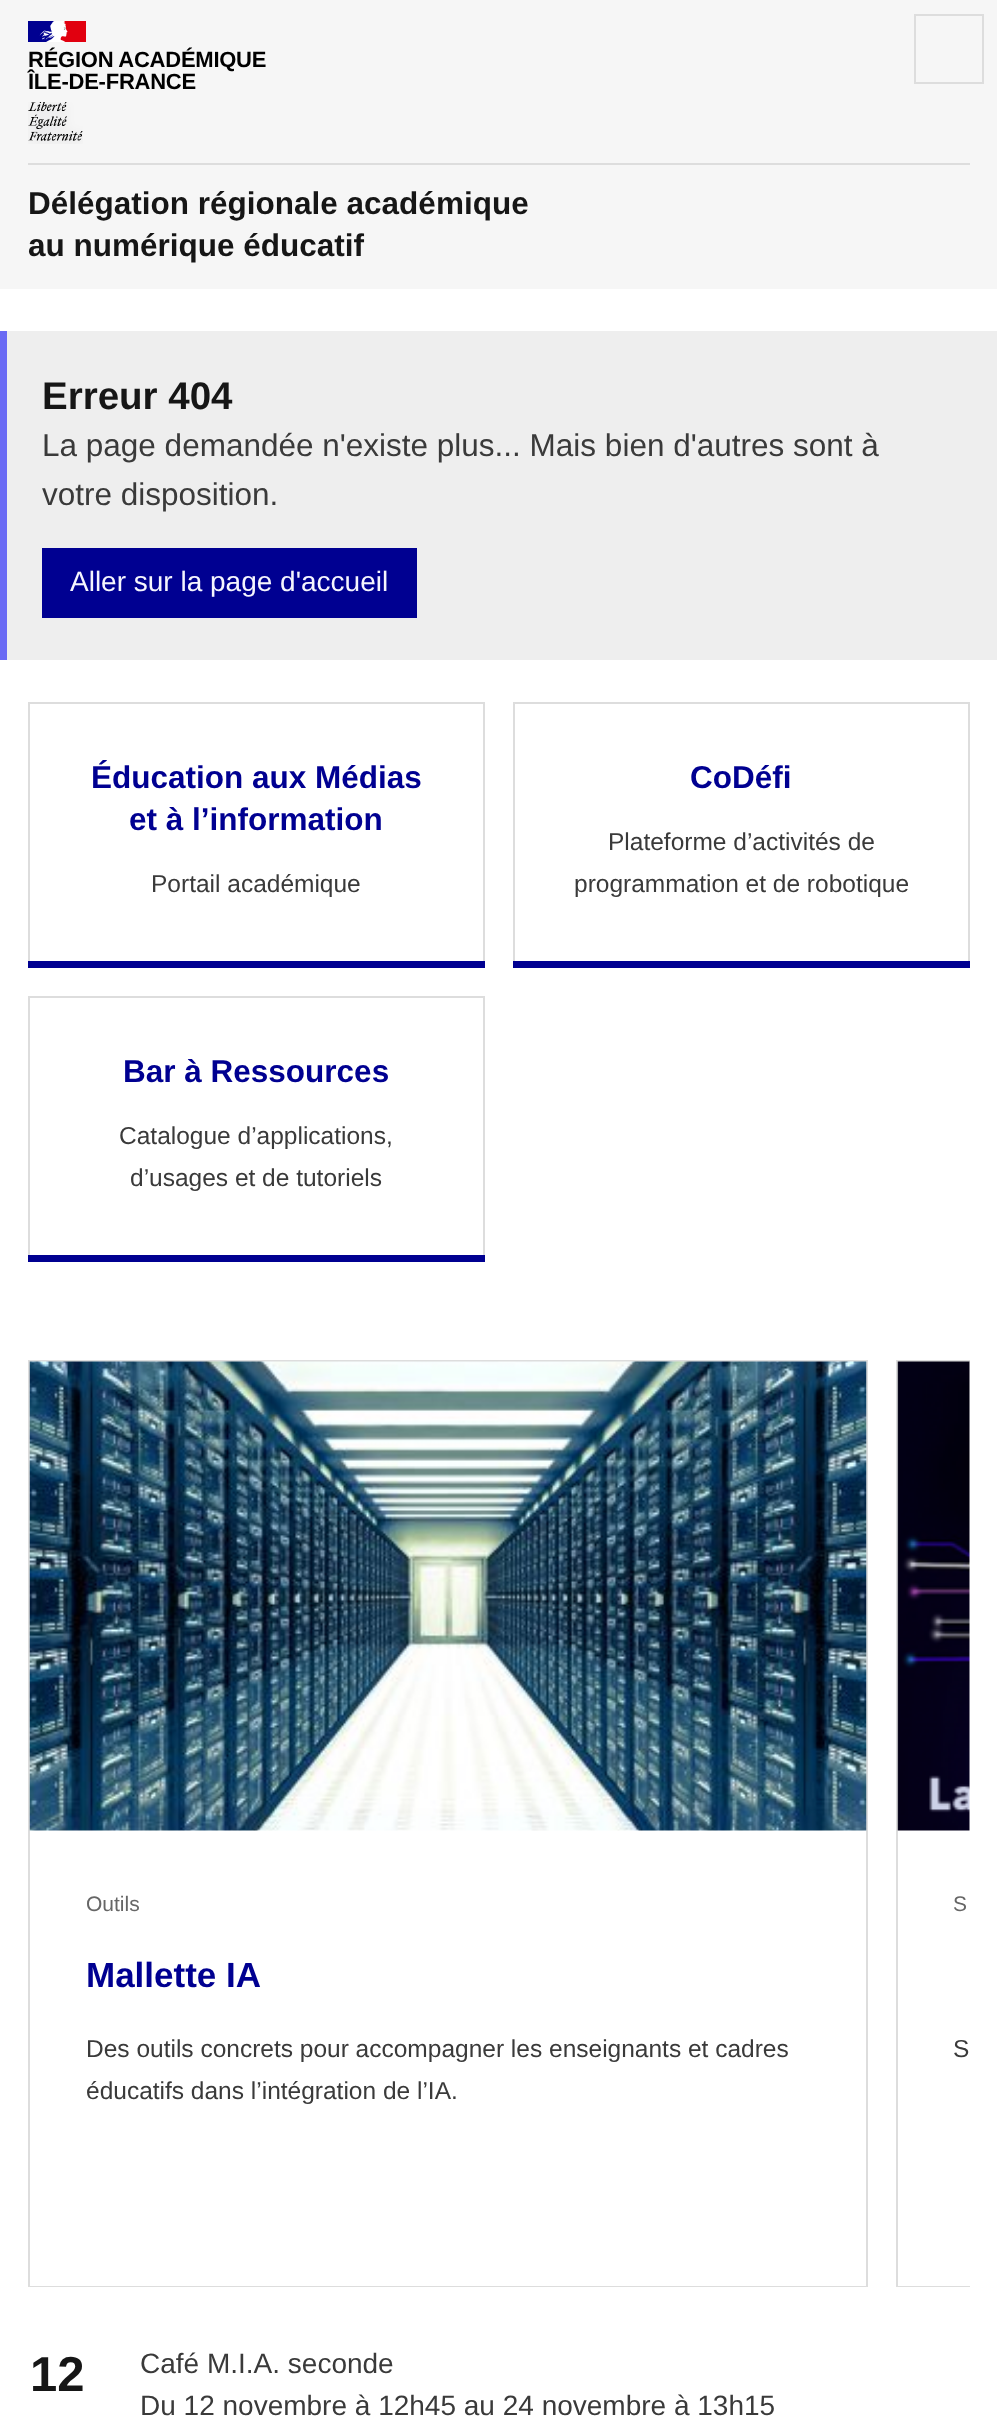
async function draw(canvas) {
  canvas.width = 997;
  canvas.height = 2434;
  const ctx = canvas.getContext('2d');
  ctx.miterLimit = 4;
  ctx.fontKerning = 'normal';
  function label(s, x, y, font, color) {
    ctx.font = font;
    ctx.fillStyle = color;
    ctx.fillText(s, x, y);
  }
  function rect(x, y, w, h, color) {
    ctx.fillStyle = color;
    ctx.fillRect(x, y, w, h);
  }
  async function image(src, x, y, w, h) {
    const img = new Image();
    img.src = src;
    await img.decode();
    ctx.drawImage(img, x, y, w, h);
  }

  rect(0, 0, 997, 2434, '#fff');
  rect(0, 0, 997, 289, '#f6f6f6');
  rect(28, 21, 27, 21, '#000091');
  rect(60, 21, 26, 21, '#e1000f');
  await image('assets/img1.png', 39, 21, 29, 21);
  ctx.letterSpacing = '-0.25px';
  label('RÉGION ACADÉMIQUE', 28, 67, 'bold 22px Liberation Sans', '#000');
  label('ÎLE-DE-FRANCE', 28, 89, 'bold 22px Liberation Sans', '#000');
  await image('assets/img2.png', 28, 102, 55, 42);
  ctx.strokeStyle = '#ddd';
  ctx.lineWidth = 2;
  ctx.strokeRect(915, 15, 68, 68);
  rect(28, 163, 942, 2, '#ddd');
  ctx.letterSpacing = '0px';
  label('Délégation régionale académique', 28, 214, 'bold 31.5px Liberation Sans', '#161616');
  label('au numérique éducatif', 28, 256, 'bold 31.5px Liberation Sans', '#161616');
  rect(7, 331, 990, 329, '#eee');
  rect(0, 331, 7, 329, '#6a6af4');
  label('Erreur 404', 42, 409, 'bold 38.5px Liberation Sans', '#161616');
  label('La page demandée n\'existe plus... Mais bien d\'autres sont à', 42, 456, '31.5px Liberation Sans', '#3a3a3a');
  label('votre disposition.', 42, 505, '31.5px Liberation Sans', '#3a3a3a');
  rect(42, 548, 375, 70, '#000091');
  label('Aller sur la page d\'accueil', 70, 591, '28px Liberation Sans', '#f5f5fe');
  rect(28, 702, 457, 2, '#ddd');
  rect(483, 702, 2, 266, '#ddd');
  rect(28, 702, 2, 266, '#ddd');
  label('Éducation aux Médias', 91, 788, 'bold 31.5px Liberation Sans', '#000091');
  label('et à l’information', 129, 830, 'bold 31.5px Liberation Sans', '#000091');
  rect(28, 961, 457, 7, '#000091');
  label('Portail académique', 151, 892, '24.5px Liberation Sans', '#3a3a3a');
  rect(513, 702, 457, 2, '#ddd');
  rect(968, 702, 2, 266, '#ddd');
  rect(513, 702, 2, 266, '#ddd');
  label('CoDéfi', 690, 788, 'bold 31.5px Liberation Sans', '#000091');
  rect(513, 961, 457, 7, '#000091');
  label('Plateforme d’activités de', 608, 850, '24.5px Liberation Sans', '#3a3a3a');
  label('programmation et de robotique', 574, 892, '24.5px Liberation Sans', '#3a3a3a');
  rect(28, 996, 457, 2, '#ddd');
  rect(483, 996, 2, 266, '#ddd');
  rect(28, 996, 2, 266, '#ddd');
  label('Bar à Ressources', 123, 1082, 'bold 31.5px Liberation Sans', '#000091');
  rect(28, 1255, 457, 7, '#000091');
  label('Catalogue d’applications,', 119, 1144, '24.5px Liberation Sans', '#3a3a3a');
  label('d’usages et de tutoriels', 130, 1186, '24.5px Liberation Sans', '#3a3a3a');
  rect(28, 1360, 840, 2, '#ddd');
  rect(866, 1360, 2, 927, '#ddd');
  rect(28, 1360, 2, 927, '#ddd');
  rect(28, 2286, 840, 1, '#ddd');
  await image('assets/img3.png', 29, 1361, 838, 470);
  label('Outils', 86, 1911, '21px Liberation Sans', '#666');
  label('Mallette IA', 86, 1987, 'bold 35px Liberation Sans', '#000091');
  label('Des outils concrets pour accompagner les enseignants et cadres', 86, 2057, '24.5px Liberation Sans', '#3a3a3a');
  label('éducatifs dans l’intégration de l’IA.', 86, 2099, '24.5px Liberation Sans', '#3a3a3a');
  rect(896, 1360, 74, 2, '#ddd');
  rect(896, 1360, 2, 927, '#ddd');
  rect(896, 2286, 74, 1, '#ddd');
  await image('assets/img4.png', 897, 1361, 73, 470);
  label('S', 953, 1911, '21px Liberation Sans', '#666');
  label('S', 953, 2057, '24.5px Liberation Sans', '#3a3a3a');
  label('12', 30, 2391, 'bold 49px Liberation Sans', '#161616');
  label('Café M.I.A. seconde', 140, 2373, '28px Liberation Sans', '#3a3a3a');
  label('Du 12 novembre à 12h45 au 24 novembre à 13h15', 140, 2415, '28px Liberation Sans', '#3a3a3a');
}

draw(document.querySelector('canvas'));
